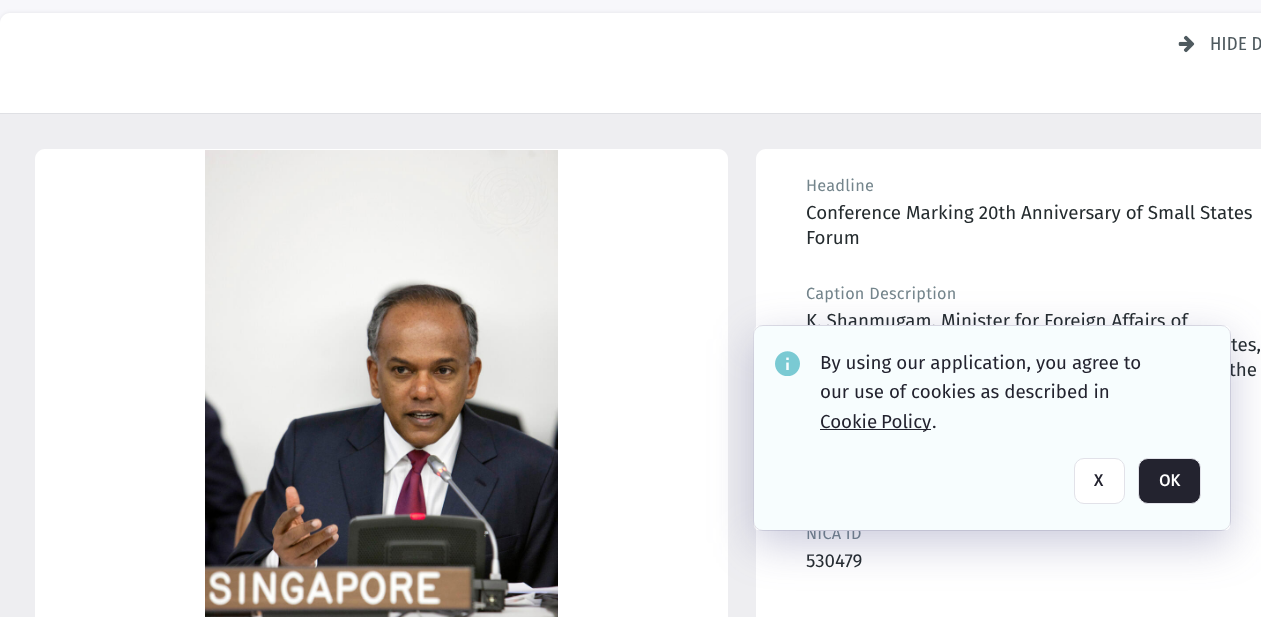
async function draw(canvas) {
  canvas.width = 1261;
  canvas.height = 617;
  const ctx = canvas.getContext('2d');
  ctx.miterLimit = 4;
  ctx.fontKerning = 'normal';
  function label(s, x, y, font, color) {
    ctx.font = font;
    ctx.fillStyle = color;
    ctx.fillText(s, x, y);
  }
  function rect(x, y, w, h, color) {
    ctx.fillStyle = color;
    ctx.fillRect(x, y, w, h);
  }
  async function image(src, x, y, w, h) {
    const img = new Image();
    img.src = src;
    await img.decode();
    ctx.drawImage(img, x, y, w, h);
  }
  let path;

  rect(0, 0, 1261, 617, '#f7f7fb');
  ctx.fillStyle = '#00000014';
  ctx.filter = 'blur(2px)';
  ctx.beginPath();
  ctx.roundRect(0, 13, 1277, 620, 10);
  ctx.fill();
  ctx.filter = 'none';
  ctx.fillStyle = '#fff';
  path = new Path2D('M10 13H1261V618H0V23C0 17.5 4.5 13 10 13Z');
  ctx.fill(path);
  await image('assets/img1.png', 1178, 35, 17, 18);
  ctx.letterSpacing = '0.25px';
  label('HIDE D', 1210, 50, '18.75px Fira Sans Condensed', '#4f5a5f');
  rect(0, 113, 1261, 1, '#dfe0e4');
  rect(0, 114, 1261, 503, '#eeeef1');
  ctx.fillStyle = '#fff';
  path = new Path2D('M45 149H718C723.5 149 728 153.5 728 159V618H35V159C35 153.5 39.5 149 45 149Z');
  ctx.fill(path);
  await image('assets/img2.png', 205, 150, 353, 467);
  path = new Path2D('M766 149H1261V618H756V159C756 153.5 760.5 149 766 149Z');
  ctx.fill(path);
  label('Headline', 806, 191, '16.25px Fira Sans', '#74858c');
  ctx.letterSpacing = '0px';
  label('Conference Marking 20th Anniversary of Small States', 806, 219, '18.75px Fira Sans', '#242b2e');
  label('Forum', 806, 244, '18.75px Fira Sans', '#242b2e');
  ctx.letterSpacing = '0.25px';
  label('Caption Description', 806, 299, '16.25px Fira Sans', '#74858c');
  ctx.letterSpacing = '0px';
  label('K. Shanmugam, Minister for Foreign Affairs of', 806, 327, '18.75px Fira Sans', '#242b2e');
  label('tes,', 1231, 351, '18.75px Fira Sans', '#242b2e');
  label('the', 1229, 376, '18.75px Fira Sans', '#242b2e');
  ctx.letterSpacing = '0.25px';
  label('NICA ID', 806, 539, '16.25px Fira Sans', '#74858c');
  ctx.letterSpacing = '0px';
  label('530479', 806, 567, '18.75px Fira Sans', '#242b2e');
  ctx.fillStyle = '#f7fdfe';
  ctx.beginPath();
  ctx.roundRect(753.5, 325.5, 477, 205, 9.5);
  ctx.fill();
  ctx.strokeStyle = '#e2e2e9';
  ctx.stroke();
  ctx.save();
  path = new Path2D('M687 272H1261V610H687ZM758 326H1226C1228 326 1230 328 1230 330V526C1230 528 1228 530 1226 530H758C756 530 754 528 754 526V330C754 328 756 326 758 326Z');
  ctx.clip(path, 'evenodd');
  ctx.fillStyle = '#4d4d874d';
  ctx.filter = 'blur(22px)';
  ctx.beginPath();
  ctx.roundRect(754, 339, 476, 204, 4);
  ctx.fill();
  ctx.filter = 'none';
  ctx.restore();
  await image('assets/img3.png', 775, 351, 25, 25);
  label('By using our application, you agree to', 820, 369, '18.75px Fira Sans', '#23232f');
  label('our use of cookies as described in', 820, 398, '18.75px Fira Sans', '#23232f');
  rect(820, 429, 111, 1, '#23232f');
  ctx.wordSpacing = '-1px';
  label('Cookie Policy', 820, 428, '18.75px Fira Sans', '#23232f');
  ctx.wordSpacing = '0px';
  label('.', 932, 428, '18.75px Fira Sans', '#23232f');
  ctx.fillStyle = '#fff';
  ctx.beginPath();
  ctx.roundRect(1074.5, 458.5, 50, 45, 9.5);
  ctx.fill();
  ctx.stroke();
  label('X', 1094, 486, 'bold 16.25px Fira Sans', '#23232f');
  ctx.beginPath();
  ctx.roundRect(1138.5, 458.5, 62, 45, 9.5);
  ctx.fill();
  ctx.stroke();
  label('OK', 1159, 486, 'bold 16.25px Fira Sans', '#fff');
}

draw(document.querySelector('canvas'));
